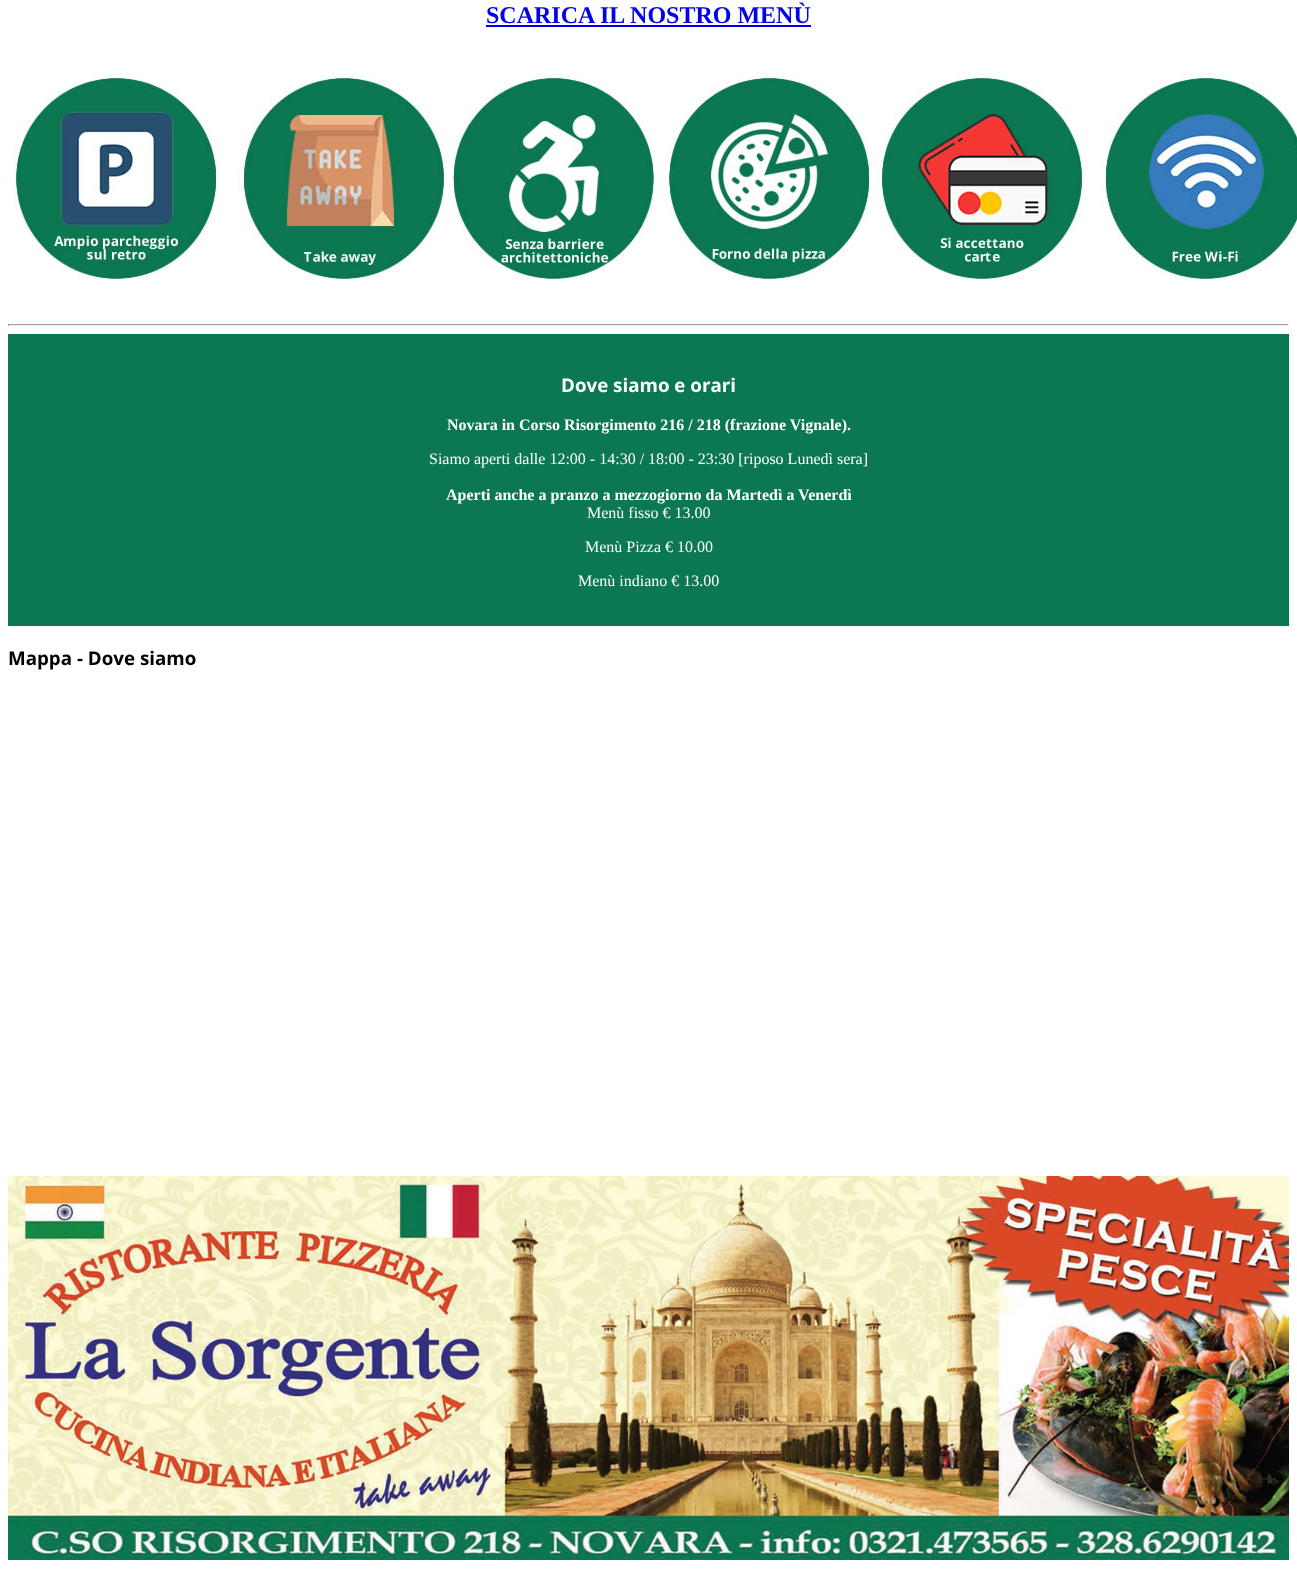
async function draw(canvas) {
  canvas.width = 1297;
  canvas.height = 1588;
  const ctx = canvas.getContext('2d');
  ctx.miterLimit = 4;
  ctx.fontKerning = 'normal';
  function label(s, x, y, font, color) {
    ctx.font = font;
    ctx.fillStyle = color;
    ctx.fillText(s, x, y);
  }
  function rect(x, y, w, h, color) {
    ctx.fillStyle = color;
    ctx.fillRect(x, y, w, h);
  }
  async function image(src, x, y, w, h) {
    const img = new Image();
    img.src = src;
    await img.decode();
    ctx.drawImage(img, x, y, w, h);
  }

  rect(0, 0, 1297, 1588, '#fff');
  label('SCARICA IL NOSTRO MENÙ', 486, 23, 'bold 24px Liberation Serif', '#00e');
  rect(486, 25, 325, 2, '#00e');
  await image('assets/img1.png', 13, 73, 1284, 208);
  rect(8, 324, 1281, 1, '#9f9f9f');
  rect(1288, 324, 1, 2, '#eee');
  rect(8, 325, 1281, 1, '#eee');
  rect(8, 324, 1, 2, '#9f9f9f');
  rect(8, 334, 1281, 292, '#0b7851');
  label('Dove siamo e orari', 561, 392, 'bold 18.75px Open Sans', '#fff');
  label('Novara in Corso Risorgimento 216 / 218 (frazione Vignale).', 447, 430, 'bold 16px Liberation Serif', '#fff');
  label('Siamo aperti dalle 12:00 - 14:30 / 18:00 - 23:30 [riposo Lunedì sera]', 429, 464, '16px Liberation Serif', '#fff');
  label('Aperti anche a pranzo a mezzogiorno da Martedì a Venerdì', 446, 500, 'bold 16px Liberation Serif', '#fff');
  label('Menù fisso € 13.00', 587, 518, '16px Liberation Serif', '#fff');
  label('Menù Pizza € 10.00', 585, 552, '16px Liberation Serif', '#fff');
  label('Menù indiano € 13.00', 578, 586, '16px Liberation Serif', '#fff');
  label('Mappa - Dove siamo', 8, 665, 'bold 18.75px Open Sans', '#000');
  await image('assets/img2.png', 8, 1176, 1281, 384);
}

draw(document.querySelector('canvas'));
